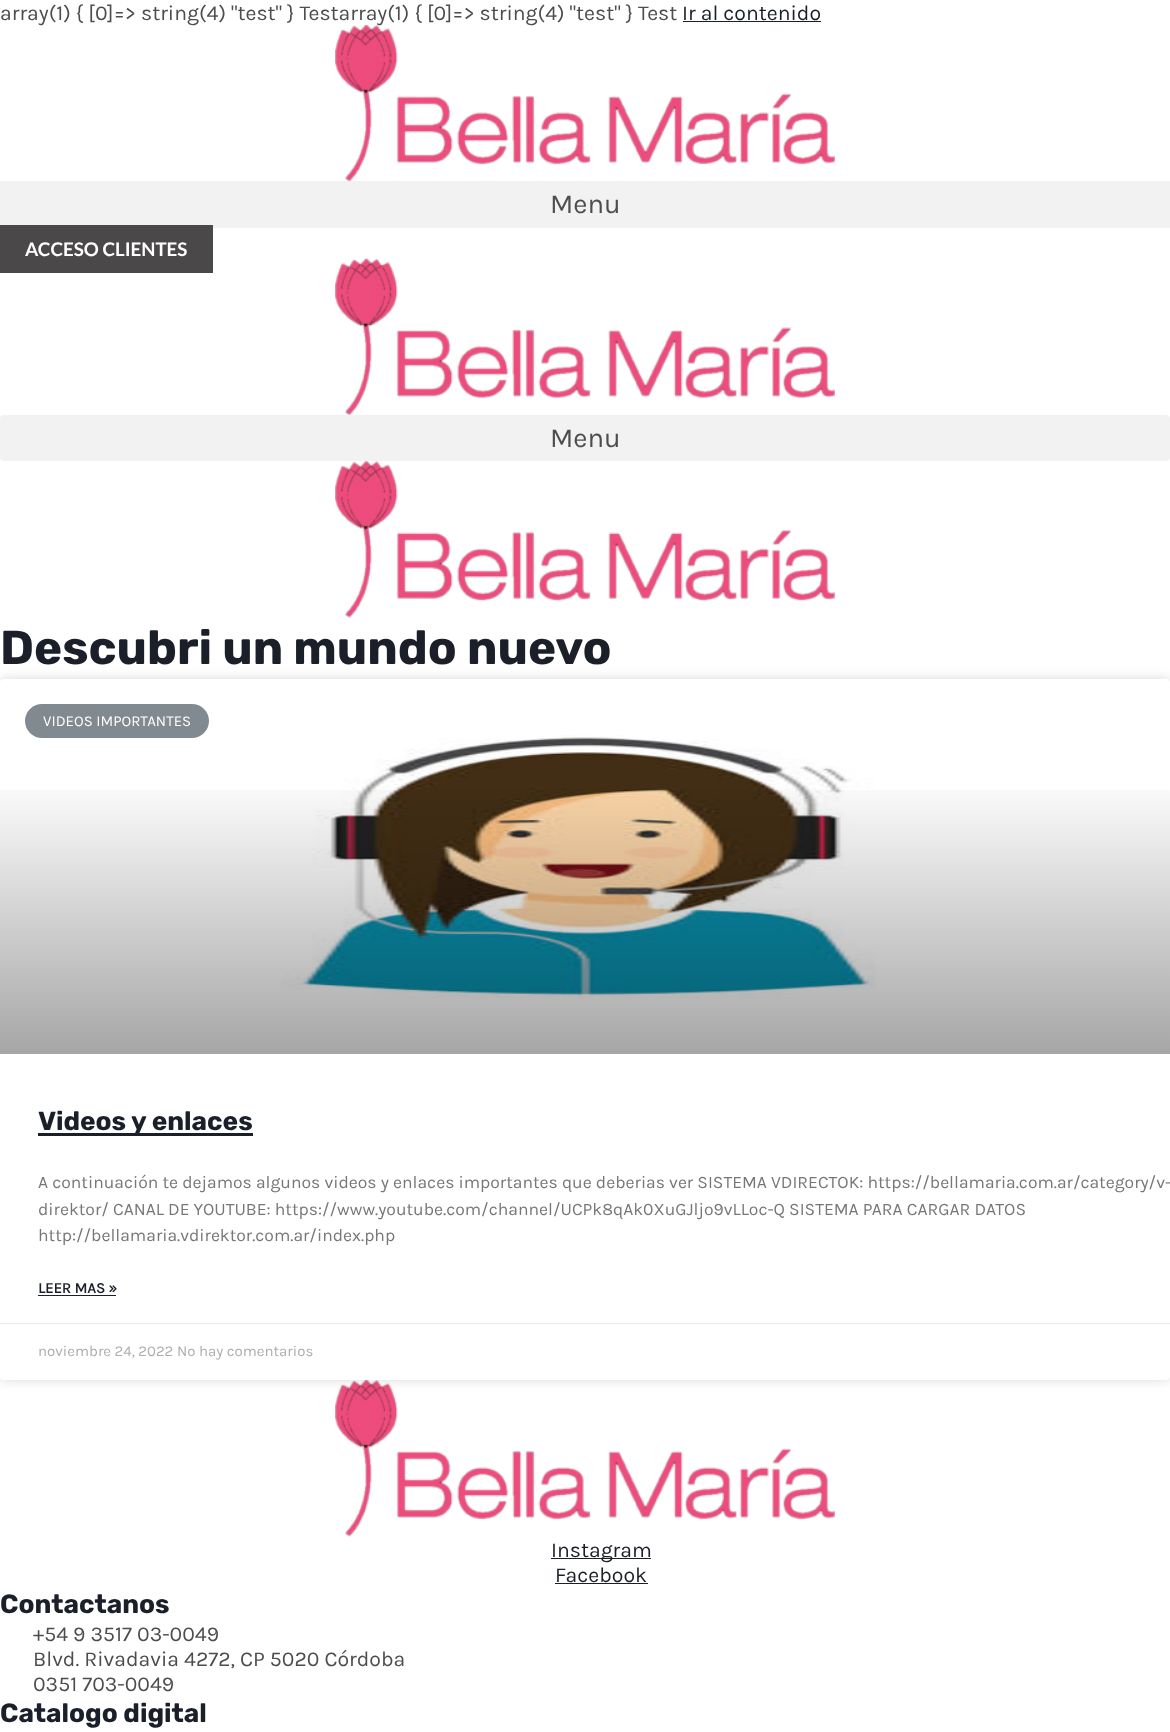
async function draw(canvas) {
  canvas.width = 1170;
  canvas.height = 1732;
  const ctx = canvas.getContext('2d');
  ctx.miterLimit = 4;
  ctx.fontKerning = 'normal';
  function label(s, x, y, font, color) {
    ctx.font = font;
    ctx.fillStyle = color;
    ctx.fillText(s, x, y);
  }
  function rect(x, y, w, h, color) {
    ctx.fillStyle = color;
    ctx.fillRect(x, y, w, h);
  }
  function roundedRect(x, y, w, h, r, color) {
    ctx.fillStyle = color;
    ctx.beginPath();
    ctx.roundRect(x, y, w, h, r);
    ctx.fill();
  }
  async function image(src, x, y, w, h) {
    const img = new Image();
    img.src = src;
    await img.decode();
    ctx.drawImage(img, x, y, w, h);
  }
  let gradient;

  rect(0, 0, 1170, 1732, '#fff');
  label('array(1) { [0]=> string(4) "test" } Testarray(1) { [0]=> string(4) "test" } Test', 0, 20, '21.25px Karla', '#4d4d4f');
  label('Ir al contenido', 682, 20, '21.25px Karla', '#1b1f29');
  rect(683, 21, 138, 1, '#1b1f29');
  await image('assets/img1.png', 335, 25, 500, 157);
  rect(0, 181, 1170, 47, '#0000000d');
  label('Menu', 550, 213, '27.5px Karla', '#4d4d4f');
  rect(0, 225, 213, 48, '#4a4848');
  label('ACCESO CLIENTES', 25, 256, 'bold 18.75px Lato', '#fff');
  await image('assets/img2.png', 335, 258, 500, 157);
  roundedRect(0, 415, 1170, 46, 4, '#f2f2f2');
  label('Menu', 550, 447, '27.5px Karla', '#4d4d4f');
  await image('assets/img3.png', 335, 461, 500, 157);
  label('Descubri un mundo nuevo', 0, 664, 'bold 47.5px Rubik', '#1b1f29');
  await image('assets/img5.png', 335, 1380, 500, 157);
  ctx.fillStyle = '#00000026';
  ctx.filter = 'blur(6px)';
  ctx.beginPath();
  ctx.roundRect(0, 679, 1170, 701, 4);
  ctx.fill();
  ctx.filter = 'none';
  roundedRect(0, 679, 1170, 701, 4, '#fff');
  roundedRect(25, 704, 184, 34, 17, '#818a91');
  label('VIDEOS IMPORTANTES', 43, 726, '15px Karla', '#fff');
  await image('assets/img4.png', 280, 735, 596, 264);
  gradient = ctx.createLinearGradient(585, 1054, 585, 679);
  gradient.addColorStop(0, '#00000059');
  gradient.addColorStop(0.75, '#00000000');
  ctx.fillStyle = gradient;
  ctx.fillRect(0, 790, 1170, 264);
  rect(38, 1133, 215, 3, '#1b1f29');
  label('Videos y enlaces', 38, 1130, 'bold 26.25px Rubik', '#1b1f29');
  label('A continuación te dejamos algunos videos y enlaces importantes que deberias ver SISTEMA VDIRECTOK: https://bellamaria.com.ar/category/v-', 38, 1188, '17.5px Karla', '#777');
  label('direktor/ CANAL DE YOUTUBE: https://www.youtube.com/channel/UCPk8qAk0XuGJljo9vLLoc-Q SISTEMA PARA CARGAR DATOS', 38, 1215, '17.5px Karla', '#777');
  label('http://bellamaria.vdirektor.com.ar/index.php', 38, 1241, '17.5px Karla', '#777');
  label('LEER MAS »', 38, 1293, 'bold 15px Karla', '#1b1f29');
  rect(38, 1295, 78, 1, '#1b1f29');
  rect(0, 1323, 1170, 1, '#eaeaea');
  label('noviembre 24, 2022 No hay comentarios', 38, 1356, '15px Karla', '#adadad');
  rect(551, 1558, 100, 1, '#1b1f29');
  label('Instagram', 551, 1557, '21.25px Karla', '#1b1f29');
  label('Facebook', 555, 1582, '21.25px Karla', '#1b1f29');
  rect(555, 1583, 93, 1, '#1b1f29');
  label('Contactanos', 0, 1613, 'bold 26.25px Rubik', '#1b1f29');
  label('+54 9 3517 03-0049', 33, 1641, '21.25px Karla', '#4d4d4f');
  label('Blvd. Rivadavia 4272, CP 5020 Córdoba', 33, 1666, '21.25px Karla', '#4d4d4f');
  label('0351 703-0049', 33, 1691, '21.25px Karla', '#4d4d4f');
  label('Catalogo digital', 0, 1722, 'bold 26.25px Rubik', '#1b1f29');
}

draw(document.querySelector('canvas'));
